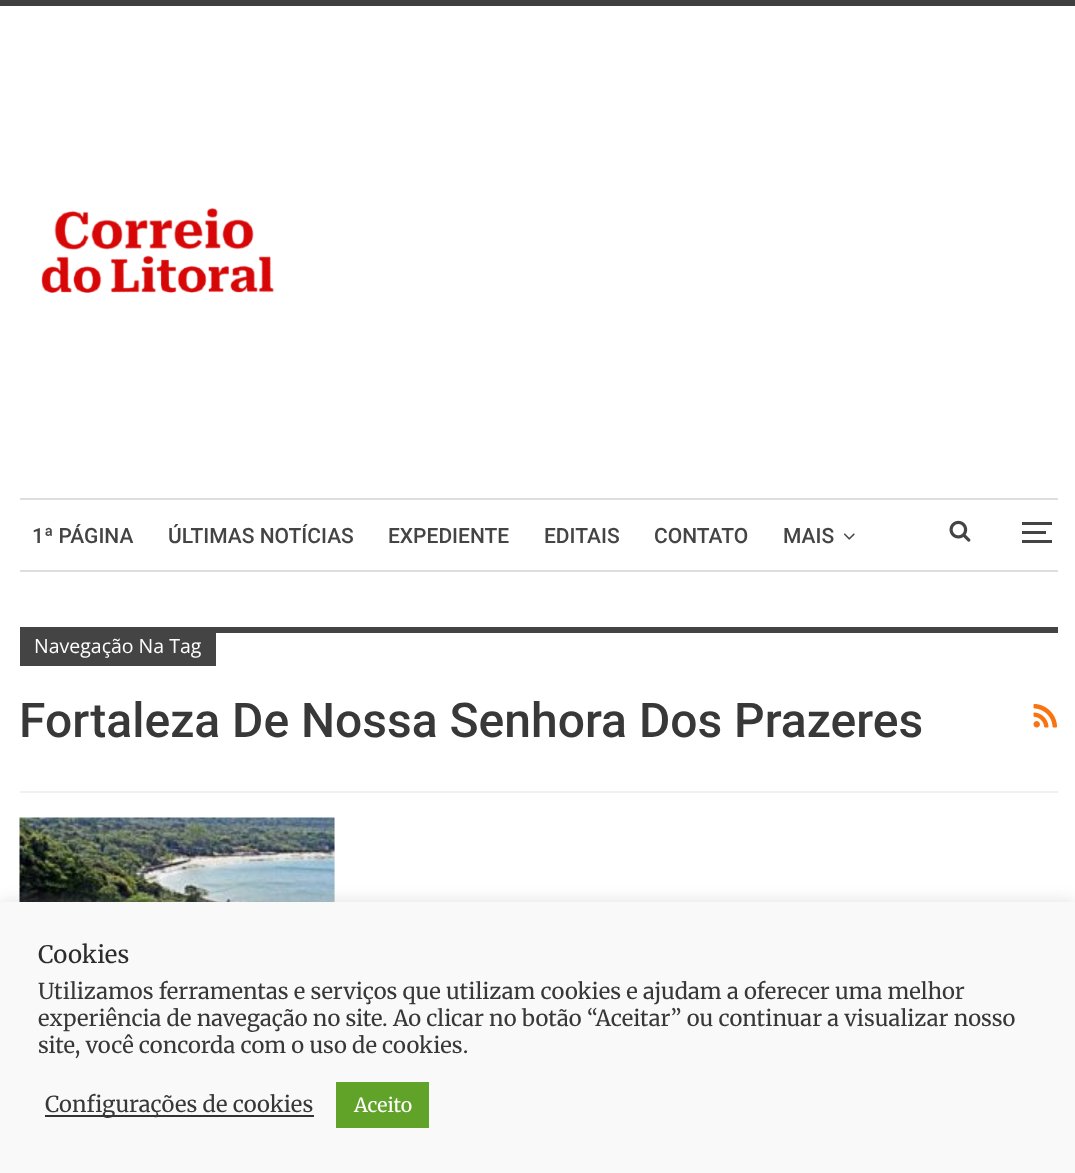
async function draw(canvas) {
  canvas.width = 1075;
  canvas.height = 1173;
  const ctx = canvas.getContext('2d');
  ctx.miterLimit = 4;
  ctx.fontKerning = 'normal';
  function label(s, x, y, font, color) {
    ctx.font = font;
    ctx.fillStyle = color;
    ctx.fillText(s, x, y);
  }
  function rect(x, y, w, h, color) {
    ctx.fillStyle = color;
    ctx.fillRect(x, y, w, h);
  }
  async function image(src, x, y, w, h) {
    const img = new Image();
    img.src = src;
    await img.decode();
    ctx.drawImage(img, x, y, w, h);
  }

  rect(0, 0, 1075, 1173, '#3f3f3f');
  rect(0, 6, 1075, 896, '#fff');
  await image('assets/img1.png', 41, 208, 233, 85);
  rect(20, 498, 1038, 2, '#dedede');
  rect(20, 570, 1038, 2, '#dedede');
  label('1ª PÁGINA', 32, 543, '500 21px Roboto', '#444');
  label('ÚLTIMAS NOTÍCIAS', 168, 543, '500 21px Roboto', '#444');
  label('EXPEDIENTE', 388, 543, '500 21px Roboto', '#444');
  label('EDITAIS', 544, 543, '500 21px Roboto', '#444');
  label('CONTATO', 654, 543, '500 21px Roboto', '#444');
  label('MAIS', 783, 543, '500 21px Roboto', '#444');
  await image('assets/img2.png', 843, 533, 12, 7);
  await image('assets/img3.png', 949, 520, 22, 22);
  rect(1022, 531, 24, 3, '#444');
  rect(1022, 522, 30, 3, '#444');
  rect(1022, 540, 30, 3, '#444');
  rect(20, 791, 1038, 2, '#f0f0f0');
  rect(216, 627, 842, 6, '#444');
  rect(20, 627, 196, 39, '#444');
  label('Navegação Na Tag', 34, 653, '19.5px Open Sans', '#fff');
  label('Fortaleza De Nossa Senhora Dos Prazeres', 19, 737, '500 48px Roboto', '#383838');
  await image('assets/img4.png', 1033, 703, 25, 25);
  rect(334, 818, 1, 84, '#f5f5f5');
  await image('assets/img5.png', 19, 817, 316, 85);
  ctx.fillStyle = '#acabab4d';
  ctx.filter = 'blur(7.5px)';
  ctx.beginPath();
  ctx.rect(0, 900, 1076, 272);
  ctx.fill();
  ctx.filter = 'none';
  rect(0, 902, 1075, 271, '#f9f9f9');
  label('Cookies', 38, 963, '24px Merriweather', '#2d2d2d');
  label('Utilizamos ferramentas e serviços que utilizam cookies e ajudam a oferecer uma melhor', 38, 999, '22px Merriweather', '#383838');
  label('experiência de navegação no site. Ao clicar no botão “Aceitar” ou continuar a visualizar nosso', 38, 1026, '22px Merriweather', '#383838');
  label('site, você concorda com o uso de cookies.', 38, 1053, '22px Merriweather', '#383838');
  rect(45, 1115, 269, 2, '#333');
  label('Configurações de cookies', 45, 1112, '22px Merriweather', '#383838');
  rect(336, 1082, 93, 46, '#61a229');
  label('Aceito', 354, 1112, '19.5px Merriweather', '#fff');
}

draw(document.querySelector('canvas'));
